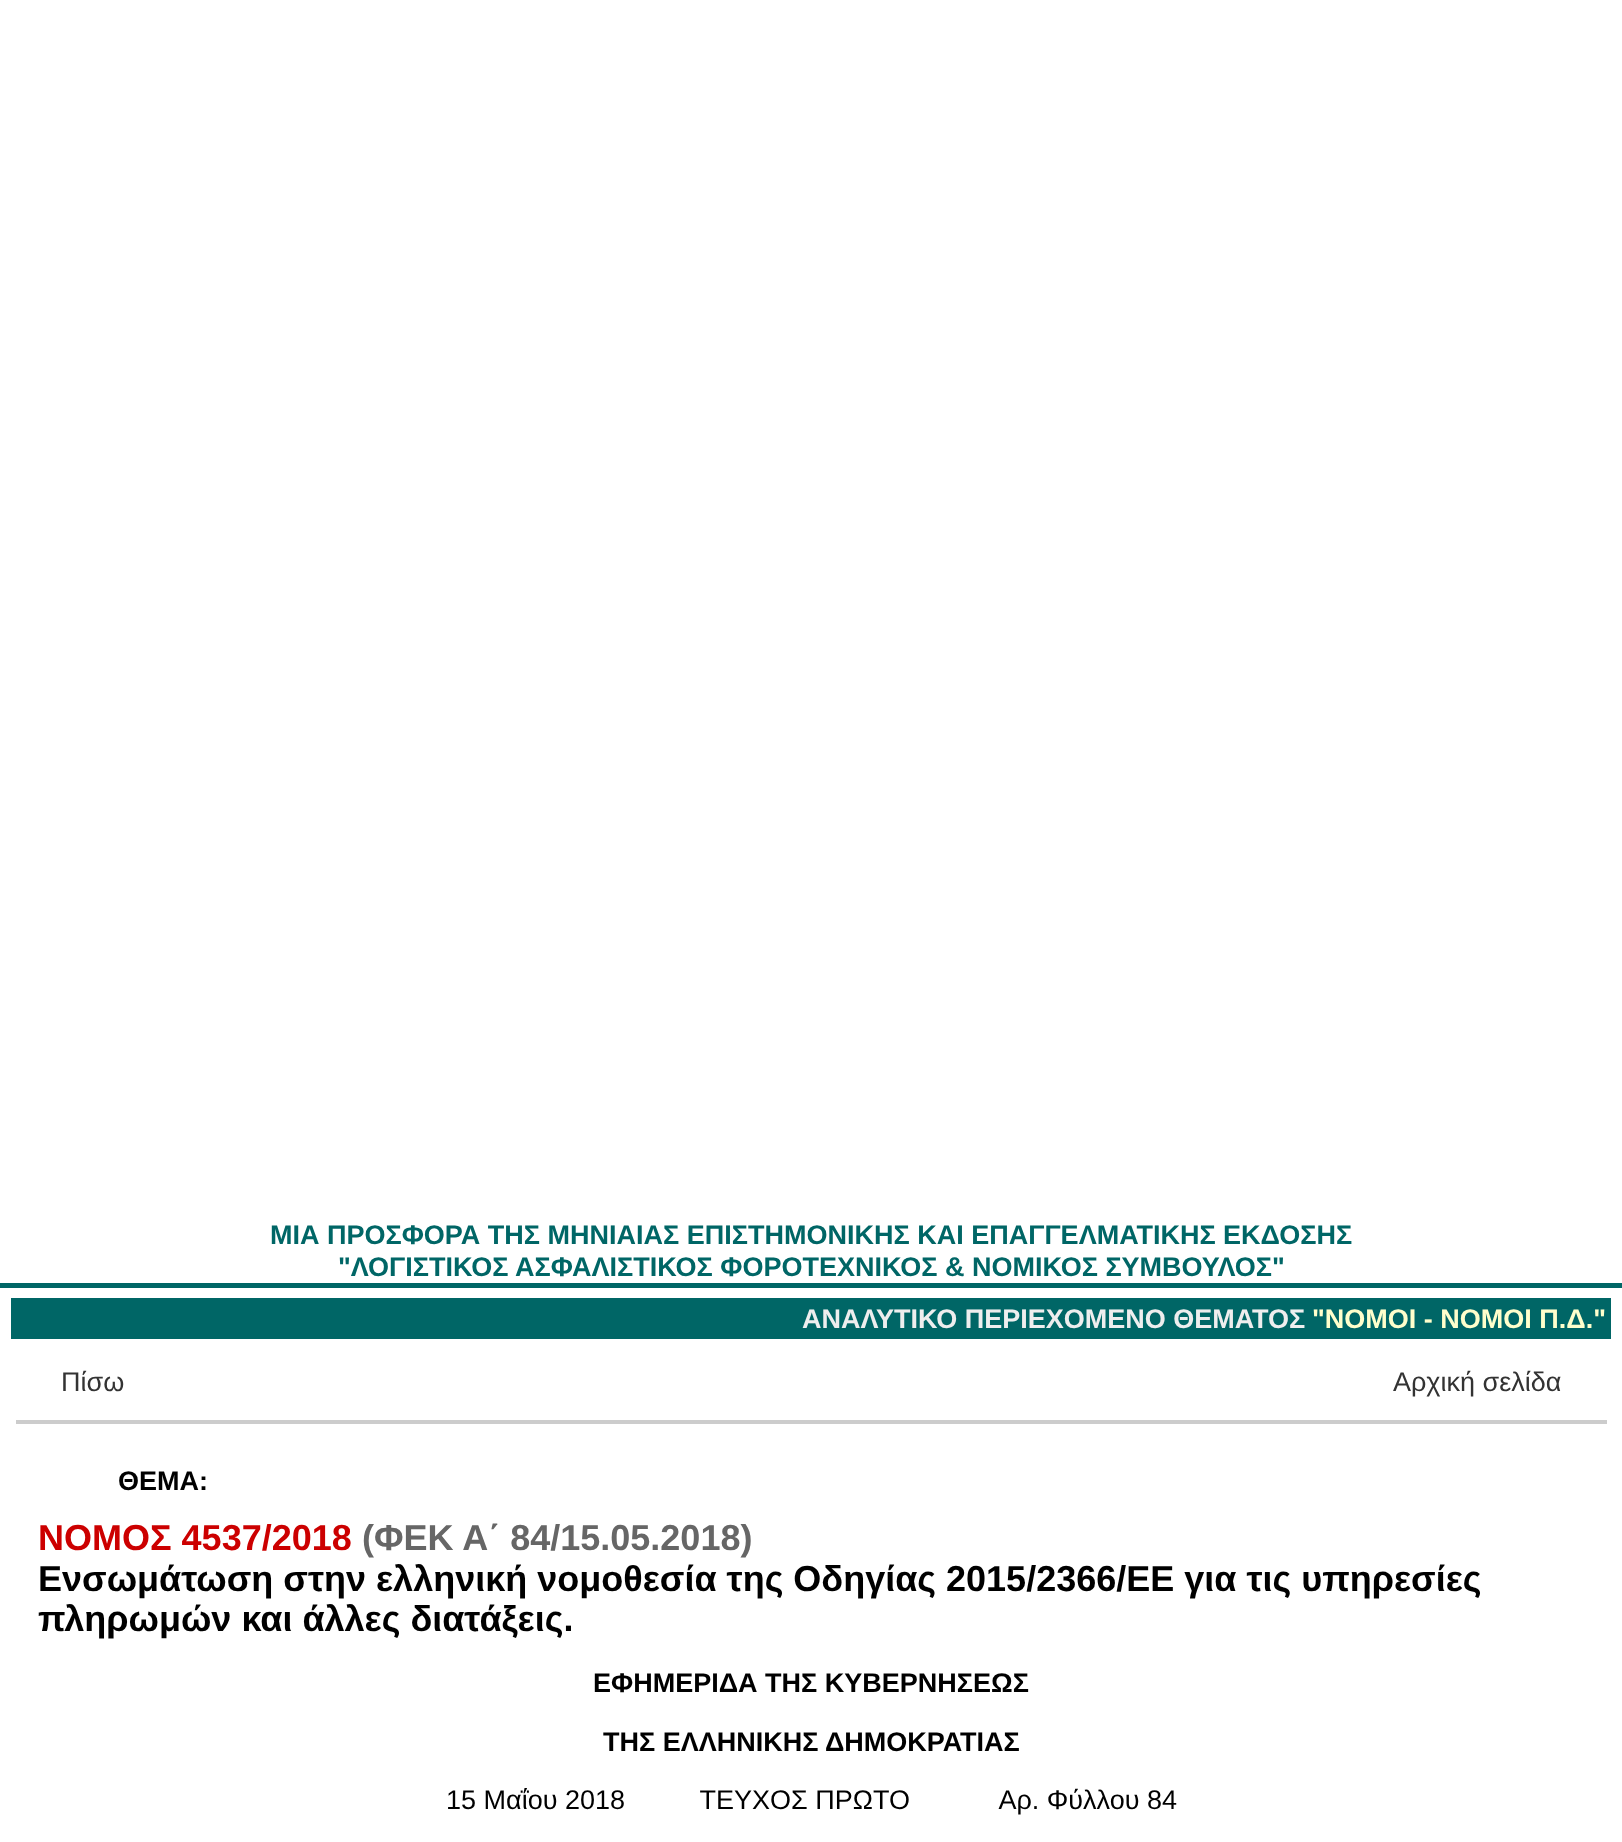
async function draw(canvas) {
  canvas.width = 1622;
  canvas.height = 1842;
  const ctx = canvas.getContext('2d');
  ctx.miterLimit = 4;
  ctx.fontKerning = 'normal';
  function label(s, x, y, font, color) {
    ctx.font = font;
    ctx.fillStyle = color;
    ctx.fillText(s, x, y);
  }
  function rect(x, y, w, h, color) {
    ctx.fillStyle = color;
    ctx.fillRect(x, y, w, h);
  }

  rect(0, 0, 1622, 1842, '#fff');
  label('ΜΙΑ ΠΡΟΣΦΟΡΑ ΤΗΣ ΜΗΝΙΑΙΑΣ ΕΠΙΣΤΗΜOΝΙΚΗΣ ΚΑΙ ΕΠΑΓΓΕΛΜΑΤΙΚΗΣ ΕΚΔΟΣΗΣ', 270, 1244, 'bold 27px Liberation Sans', '#066');
  label('"ΛΟΓΙΣΤΙΚΟΣ ΑΣΦΑΛΙΣΤΙΚΟΣ ΦΟΡΟΤΕΧΝΙΚΟΣ & ΝΟΜΙΚΟΣ ΣΥΜΒΟΥΛΟΣ"', 338, 1276, 'bold 27px Liberation Sans', '#066');
  rect(0, 1283, 1622, 5, '#066');
  rect(11, 1298, 1600, 41, '#066');
  label('ΑΝΑΛΥΤΙΚΟ ΠΕΡΙΕΧΟΜΕΝΟ ΘΕΜΑΤΟΣ', 802, 1328, 'bold 27px Liberation Sans', '#eee');
  label('"ΝΟΜΟΙ - NOMOI Π.Δ."', 1312, 1328, 'bold 27px Liberation Sans', '#ffc');
  label('Πίσω', 61, 1391, '27px Liberation Sans', '#333');
  label('Aρχική σελίδα', 1393, 1391, '27px Liberation Sans', '#333');
  rect(16, 1420, 1591, 4, '#ccc');
  label('ΘΕΜΑ:', 118, 1490, 'bold 27px Liberation Sans', '#000');
  label('ΝΟΜΟΣ 4537/2018', 38, 1550, 'bold 36px Liberation Sans', '#c00');
  label('(ΦΕΚ Α΄ 84/15.05.2018)', 362, 1550, 'bold 36px Liberation Sans', '#666');
  label('Eνσωμάτωση στην ελληνική νομοθεσία της Οδηγίας 2015/2366/ΕΕ για τις υπηρεσίες', 38, 1591, 'bold 36px Liberation Sans', '#000');
  label('πληρωμών και άλλες διατάξεις.', 38, 1631, 'bold 36px Liberation Sans', '#000');
  label('ΕΦΗΜΕΡΙΔΑ ΤΗΣ ΚΥΒΕΡΝΗΣΕΩΣ', 593, 1692, 'bold 27px Liberation Sans', '#000');
  label('ΤΗΣ ΕΛΛΗΝΙΚΗΣ ΔΗΜΟΚΡΑΤΙΑΣ', 603, 1751, 'bold 27px Liberation Sans', '#000');
  label('15 Μαΐου 2018          ΤΕΥΧΟΣ ΠΡΩΤΟ            Αρ. Φύλλου 84', 446, 1809, '27px Liberation Sans', '#000');
}

draw(document.querySelector('canvas'));
